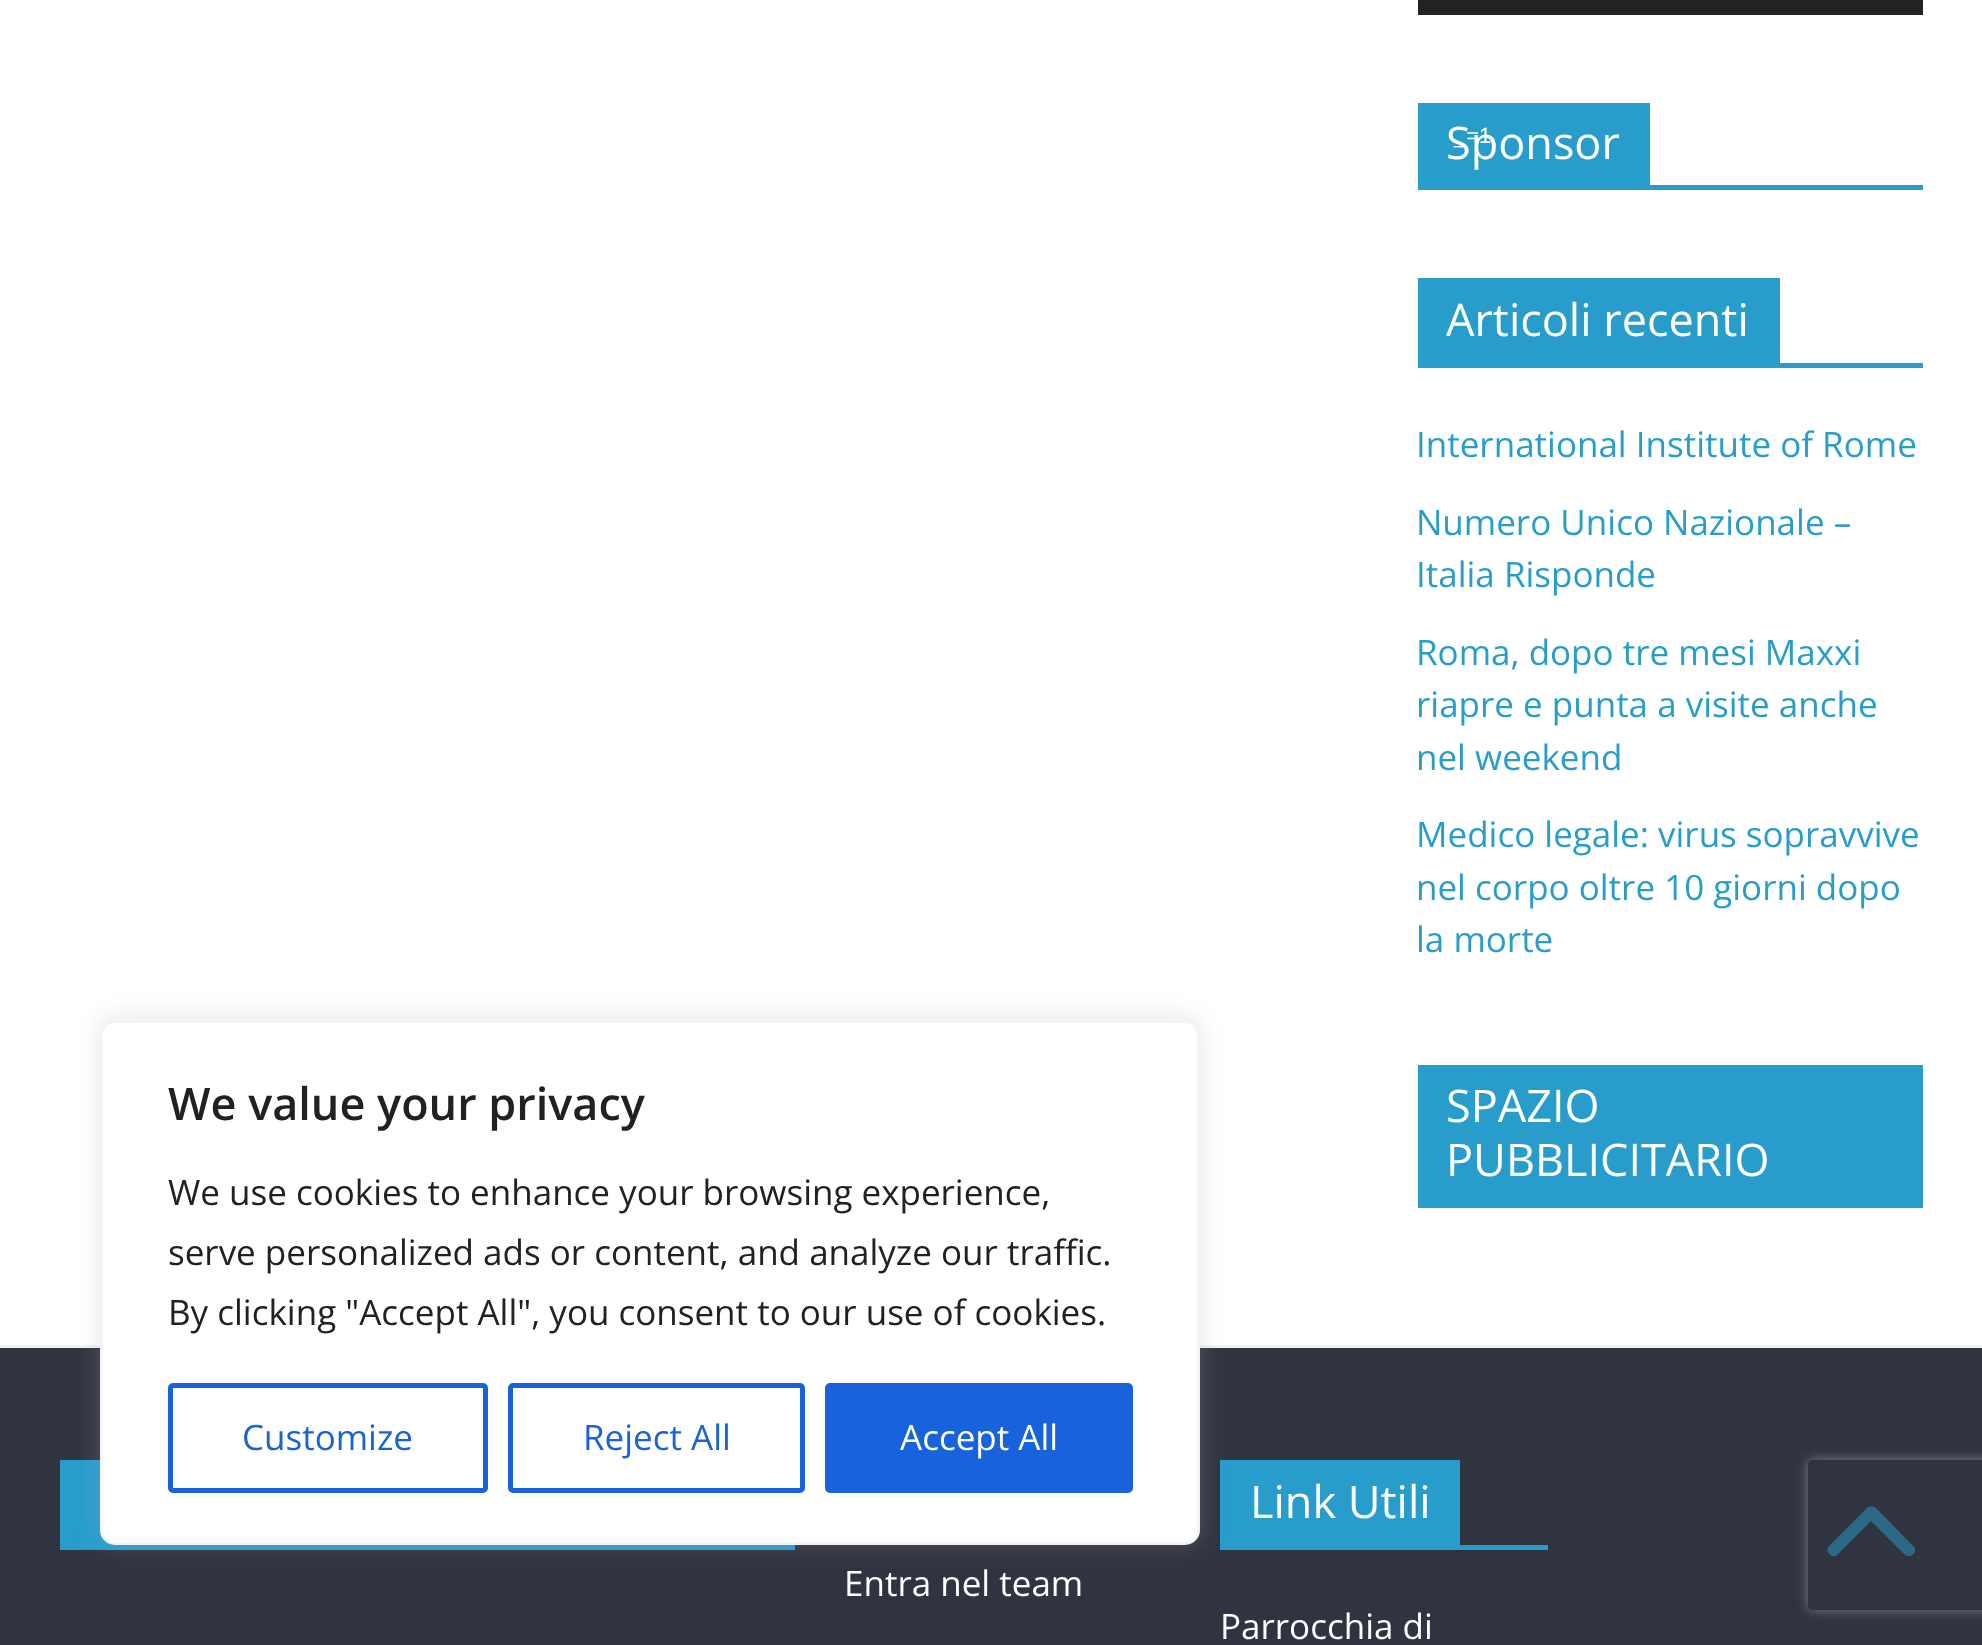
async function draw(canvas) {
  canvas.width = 1982;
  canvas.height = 1645;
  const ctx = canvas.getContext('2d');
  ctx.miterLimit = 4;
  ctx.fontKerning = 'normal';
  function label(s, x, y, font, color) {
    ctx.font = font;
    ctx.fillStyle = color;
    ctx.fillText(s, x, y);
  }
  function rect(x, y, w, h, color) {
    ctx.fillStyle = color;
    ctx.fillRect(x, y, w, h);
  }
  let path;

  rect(0, 0, 1982, 1645, '#fff');
  rect(0, 1348, 1982, 297, '#303440');
  rect(0, 1345, 1982, 3, '#f2f2f2');
  rect(60, 1545, 735, 5, '#289dcc');
  rect(60, 1460, 55, 85, '#289dcc');
  rect(1220, 1545, 328, 5, '#289dcc');
  rect(1220, 1460, 240, 85, '#289dcc');
  ctx.fillStyle = '#acabab4d';
  ctx.filter = 'blur(12.5px)';
  ctx.beginPath();
  ctx.roundRect(100, 1018, 1100, 525, 15);
  ctx.fill();
  ctx.filter = 'none';
  ctx.fillStyle = '#fff';
  ctx.beginPath();
  ctx.roundRect(101.5, 1021.5, 1097, 522, 13.5);
  ctx.fill();
  ctx.strokeStyle = '#f4f4f4';
  ctx.lineWidth = 3;
  ctx.stroke();
  label('We value your privacy', 168, 1120, '600 45px Open Sans', '#212121');
  label('We use cookies to enhance your browsing experience,', 168, 1205, '35px Open Sans', '#212121');
  label('serve personalized ads or content, and analyze our traffic.', 168, 1265, '35px Open Sans', '#212121');
  label('By clicking "Accept All", you consent to our use of cookies.', 168, 1325, '35px Open Sans', '#212121');
  ctx.beginPath();
  ctx.roundRect(170.5, 1385.5, 315, 105, 2.5);
  ctx.strokeStyle = '#1863dc';
  ctx.lineWidth = 5;
  ctx.stroke();
  label('Customize', 242, 1450, '35px Open Sans', '#1863dc');
  ctx.beginPath();
  ctx.roundRect(510.5, 1385.5, 292, 105, 2.5);
  ctx.stroke();
  label('Reject All', 583, 1450, '35px Open Sans', '#1863dc');
  ctx.beginPath();
  ctx.roundRect(827.5, 1385.5, 303, 105, 2.5);
  ctx.fill();
  ctx.stroke();
  label('Accept All', 900, 1450, '35px Open Sans', '#fff');
  rect(1418, 185, 505, 5, '#289dcc');
  rect(1418, 103, 232, 82, '#289dcc');
  label('Sponsor', 1446, 159, '45px Open Sans', '#fff');
  rect(1418, 0, 505, 15, '#222');
  label('_=1', 1454, 143, '22px Liberation Sans', '#fff');
  rect(1418, 363, 505, 5, '#289dcc');
  rect(1418, 278, 362, 85, '#289dcc');
  label('Articoli recenti', 1446, 336, '45px Open Sans', '#fff');
  label('International Institute of Rome', 1416, 457, '35px Open Sans', '#289dcc');
  label('Numero Unico Nazionale –', 1416, 535, '35px Open Sans', '#289dcc');
  label('Italia Risponde', 1416, 587, '35px Open Sans', '#289dcc');
  label('Roma, dopo tre mesi Maxxi', 1416, 665, '35px Open Sans', '#289dcc');
  label('riapre e punta a visite anche', 1416, 717, '35px Open Sans', '#289dcc');
  label('nel weekend', 1416, 770, '35px Open Sans', '#289dcc');
  label('Medico legale: virus sopravvive', 1416, 847, '35px Open Sans', '#289dcc');
  label('nel corpo oltre 10 giorni dopo', 1416, 900, '35px Open Sans', '#289dcc');
  label('la morte', 1416, 952, '35px Open Sans', '#289dcc');
  rect(1418, 1065, 505, 143, '#289dcc');
  label('SPAZIO', 1446, 1122, '45px Open Sans', '#fff');
  label('PUBBLICITARIO', 1446, 1176, '45px Open Sans', '#fff');
  label('Entra nel team', 844, 1596, '35px Open Sans', '#fff');
  label('Link Utili', 1250, 1518, '45px Open Sans', '#fff');
  label('Parrocchia di', 1220, 1639, '35px Open Sans', '#fff');
  ctx.fillStyle = '#2c6986';
  path = new Path2D('M1867 1508C1869 1506 1873 1506 1876 1508L1913 1546C1916 1548 1916 1552 1913 1554C1911 1557 1907 1557 1904 1554L1871 1521L1838 1554C1836 1557 1832 1557 1829 1554C1827 1552 1827 1548 1829 1546Z');
  ctx.fill(path);
  ctx.save();
  path = new Path2D('M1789 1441H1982V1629H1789ZM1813 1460H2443C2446 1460 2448 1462 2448 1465V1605C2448 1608 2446 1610 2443 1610H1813C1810 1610 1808 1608 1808 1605V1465C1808 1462 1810 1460 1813 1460Z');
  ctx.clip(path, 'evenodd');
  ctx.fillStyle = '#808080';
  ctx.filter = 'blur(6px)';
  ctx.beginPath();
  ctx.roundRect(1808, 1460, 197, 150, 5);
  ctx.fill();
  ctx.filter = 'none';
  ctx.restore();
}

draw(document.querySelector('canvas'));
